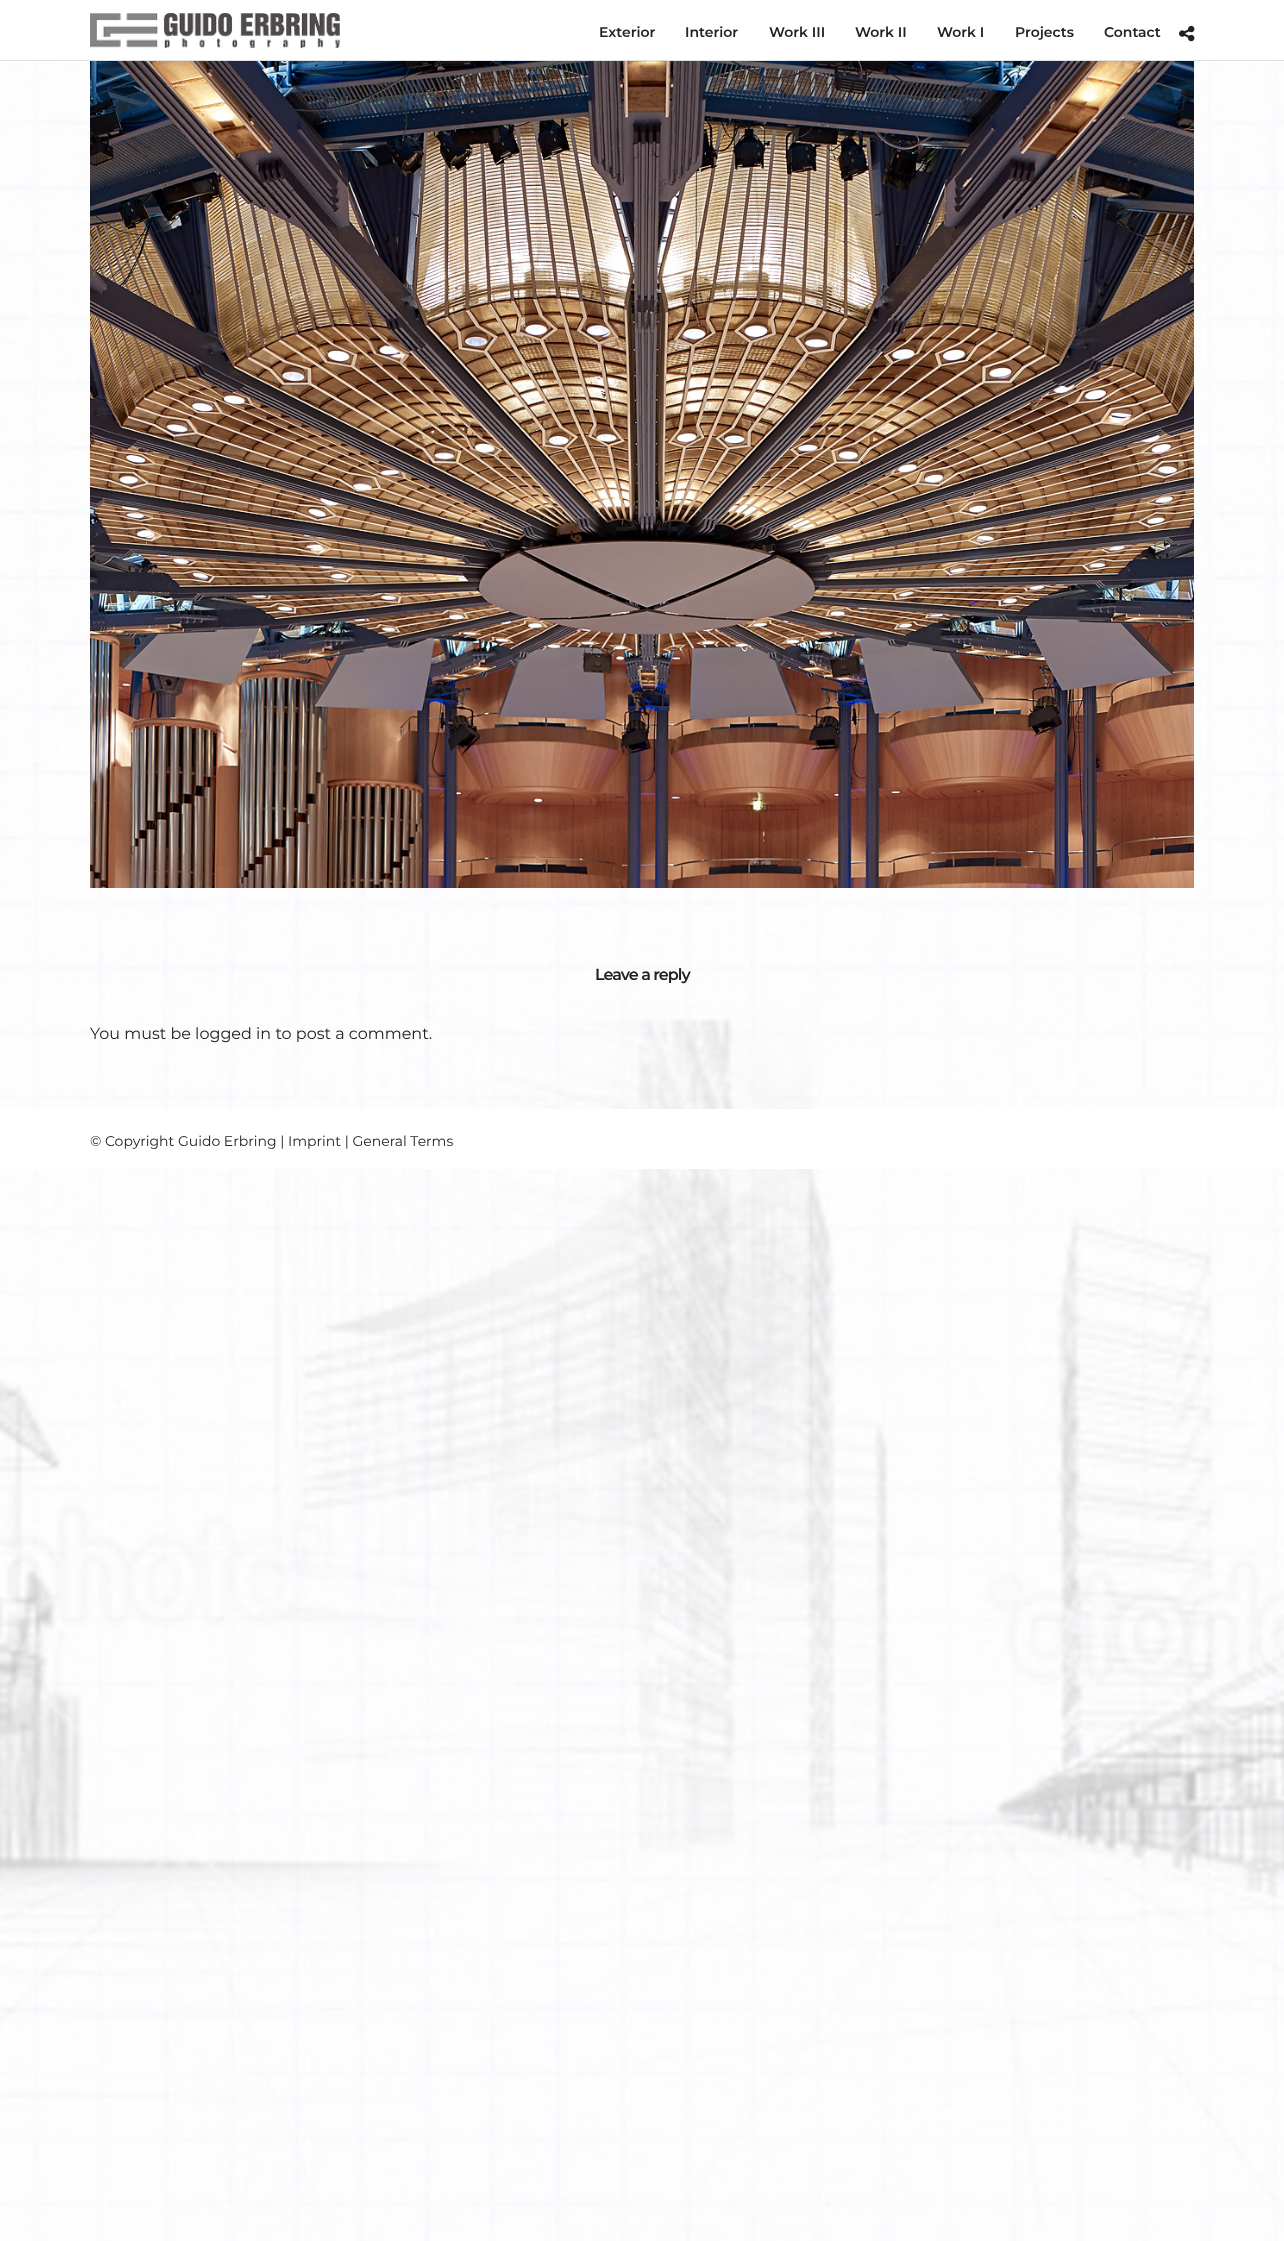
async function draw(canvas) {
  canvas.width = 1284;
  canvas.height = 2241;
  const ctx = canvas.getContext('2d');
  ctx.miterLimit = 4;
  ctx.fontKerning = 'normal';
  function label(s, x, y, font, color) {
    ctx.font = font;
    ctx.fillStyle = color;
    ctx.fillText(s, x, y);
  }
  function rect(x, y, w, h, color) {
    ctx.fillStyle = color;
    ctx.fillRect(x, y, w, h);
  }
  async function image(src, x, y, w, h) {
    const img = new Image();
    img.src = src;
    await img.decode();
    ctx.drawImage(img, x, y, w, h);
  }

  rect(0, 0, 1284, 2241, '#fff');
  await image('assets/img1.png', 0, 61, 1284, 2180);
  rect(0, 60, 1284, 1, '#e1e1e1');
  await image('assets/img2.png', 90, 13, 250, 35);
  label('Exterior', 599, 37, '600 14px Montserrat', '#222');
  label('Interior', 685, 37, '600 14px Montserrat', '#222');
  label('Work III', 769, 37, '600 14px Montserrat', '#222');
  label('Work II', 855, 37, '600 14px Montserrat', '#222');
  label('Work I', 937, 37, '600 14px Montserrat', '#222');
  label('Projects', 1015, 37, '600 14px Montserrat', '#222');
  label('Contact', 1104, 37, '600 14px Montserrat', '#222');
  await image('assets/img3.png', 1179, 25, 16, 17);
  await image('assets/img4.png', 90, 61, 1104, 827);
  ctx.letterSpacing = '-1px';
  label('Leave a reply', 595, 980, '600 16px Montserrat', '#222');
  ctx.letterSpacing = '0px';
  label('You must be logged in to post a comment.', 90, 1039, '16px Montserrat', '#222');
  rect(0, 1109, 1284, 60, '#fff');
  label('© Copyright Guido Erbring | Imprint | General Terms', 90, 1146, '14px Montserrat', '#222');
}

draw(document.querySelector('canvas'));
